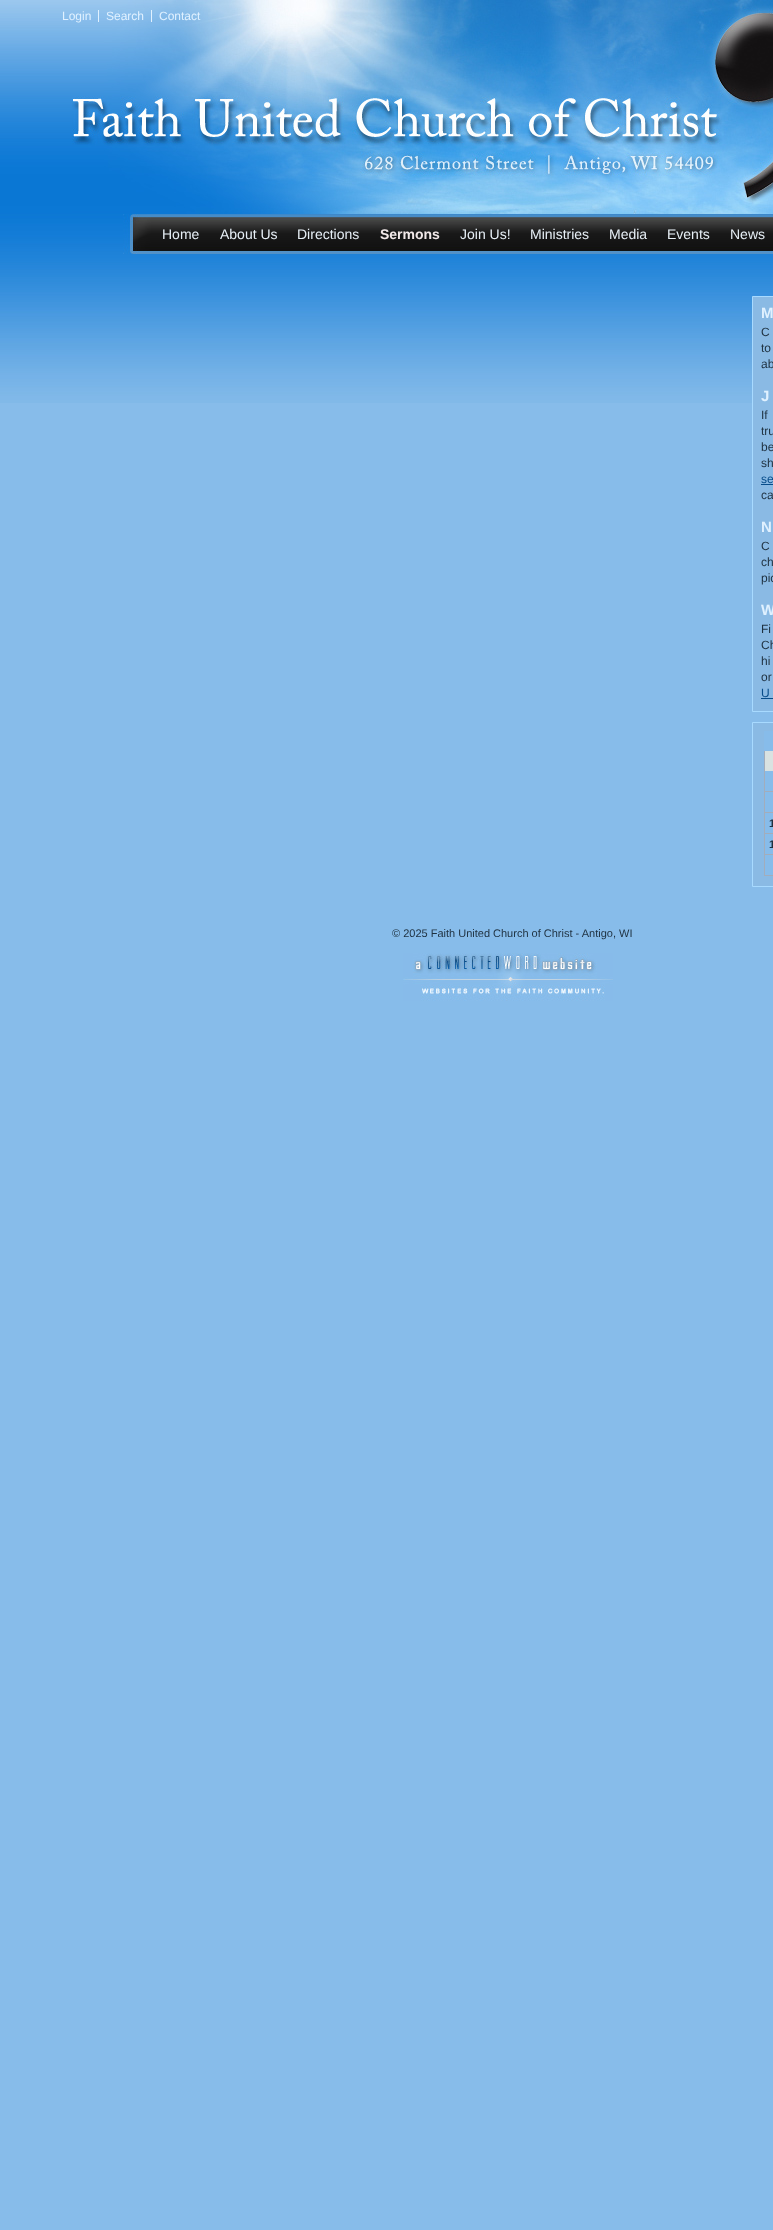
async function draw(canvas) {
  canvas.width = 773;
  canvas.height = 2230;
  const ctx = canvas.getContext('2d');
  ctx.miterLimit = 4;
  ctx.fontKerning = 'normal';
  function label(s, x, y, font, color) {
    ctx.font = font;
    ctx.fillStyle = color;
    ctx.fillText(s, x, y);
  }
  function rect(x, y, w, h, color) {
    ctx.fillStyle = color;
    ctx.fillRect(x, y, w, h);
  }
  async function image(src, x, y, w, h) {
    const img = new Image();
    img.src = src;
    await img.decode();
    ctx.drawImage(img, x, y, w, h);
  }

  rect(0, 0, 773, 2230, '#87bcea');
  await image('assets/img1.png', 0, 0, 773, 403);
  await image('assets/img2.png', 72, 0, 701, 214);
  rect(98, 10, 1, 12, '#e0f1ff');
  label('Login', 62, 20, '12px Liberation Sans', '#e0f1ff');
  rect(151, 10, 1, 12, '#e0f1ff');
  label('Search', 106, 20, '12px Liberation Sans', '#e0f1ff');
  label('Contact', 159, 20, '12px Liberation Sans', '#e0f1ff');
  await image('assets/img3.png', 123, 214, 28, 40);
  await image('assets/img4.png', 151, 214, 622, 40);
  label('Home', 162, 239, '14px Liberation Sans', '#e7eff6');
  label('About Us', 220, 239, '14px Liberation Sans', '#e7eff6');
  label('Directions', 297, 239, '14px Liberation Sans', '#e7eff6');
  label('Sermons', 380, 239, 'bold 14px Liberation Sans', '#f2e9e9');
  label('Join Us!', 460, 239, '14px Liberation Sans', '#e7eff6');
  label('Ministries', 530, 239, '14px Liberation Sans', '#e7eff6');
  label('Media', 609, 239, '14px Liberation Sans', '#e7eff6');
  label('Events', 667, 239, '14px Liberation Sans', '#e7eff6');
  label('News', 730, 239, '14px Liberation Sans', '#e7eff6');
  ctx.fillStyle = '#8abae4';
  ctx.beginPath();
  ctx.rect(752.5, 296.5, 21, 415);
  ctx.fill();
  ctx.strokeStyle = '#a8daff';
  ctx.stroke();
  label('M', 761, 318, 'bold 15px Liberation Sans', '#e0f1ff');
  label('C', 761, 336, '12px Liberation Sans', '#1f3140');
  label('to', 761, 352, '12px Liberation Sans', '#1f3140');
  label('ab', 761, 368, '12px Liberation Sans', '#1f3140');
  label('J', 761, 401, 'bold 15px Liberation Sans', '#e0f1ff');
  label('If', 761, 419, '12px Liberation Sans', '#1f3140');
  label('tru', 761, 435, '12px Liberation Sans', '#1f3140');
  label('be', 761, 451, '12px Liberation Sans', '#1f3140');
  label('sh', 761, 467, '12px Liberation Sans', '#1f3140');
  label('se', 761, 483, '12px Liberation Sans', '#084d8a');
  rect(761, 484, 12, 1, '#084d8a');
  label('ca', 761, 499, '12px Liberation Sans', '#1f3140');
  label('N', 761, 532, 'bold 15px Liberation Sans', '#e0f1ff');
  label('C', 761, 550, '12px Liberation Sans', '#1f3140');
  label('ch', 761, 566, '12px Liberation Sans', '#1f3140');
  label('pic', 761, 582, '12px Liberation Sans', '#1f3140');
  label('W', 761, 615, 'bold 15px Liberation Sans', '#e0f1ff');
  label('Fi', 761, 633, '12px Liberation Sans', '#1f3140');
  label('Ch', 761, 649, '12px Liberation Sans', '#1f3140');
  label('hi', 761, 665, '12px Liberation Sans', '#1f3140');
  label('or', 761, 681, '12px Liberation Sans', '#1f3140');
  label('U', 761, 697, '12px Liberation Sans', '#084d8a');
  rect(761, 698, 12, 1, '#084d8a');
  ctx.fillStyle = '#8abae4';
  ctx.beginPath();
  ctx.rect(752.5, 722.5, 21, 164);
  ctx.fill();
  ctx.stroke();
  rect(764, 751, 1, 125, '#a2adbc');
  rect(764, 731, 9, 20, '#87bcea');
  rect(765, 751, 8, 20, '#d9e2e1');
  rect(765, 771, 8, 105, '#87bcea');
  rect(765, 791, 8, 1, '#a2adbc');
  rect(765, 812, 8, 1, '#a2adbc');
  rect(765, 833, 8, 1, '#a2adbc');
  label('1', 769, 827, 'bold 11px Liberation Sans', '#1f3140');
  rect(765, 854, 8, 1, '#a2adbc');
  label('1', 769, 848, 'bold 11px Liberation Sans', '#1f3140');
  rect(765, 875, 8, 1, '#a2adbc');
  label('© 2025 Faith United Church of Christ - Antigo, WI', 392, 937, '11px Liberation Sans', '#1f3140');
  await image('assets/img5.png', 403, 953, 210, 48);
}

draw(document.querySelector('canvas'));
